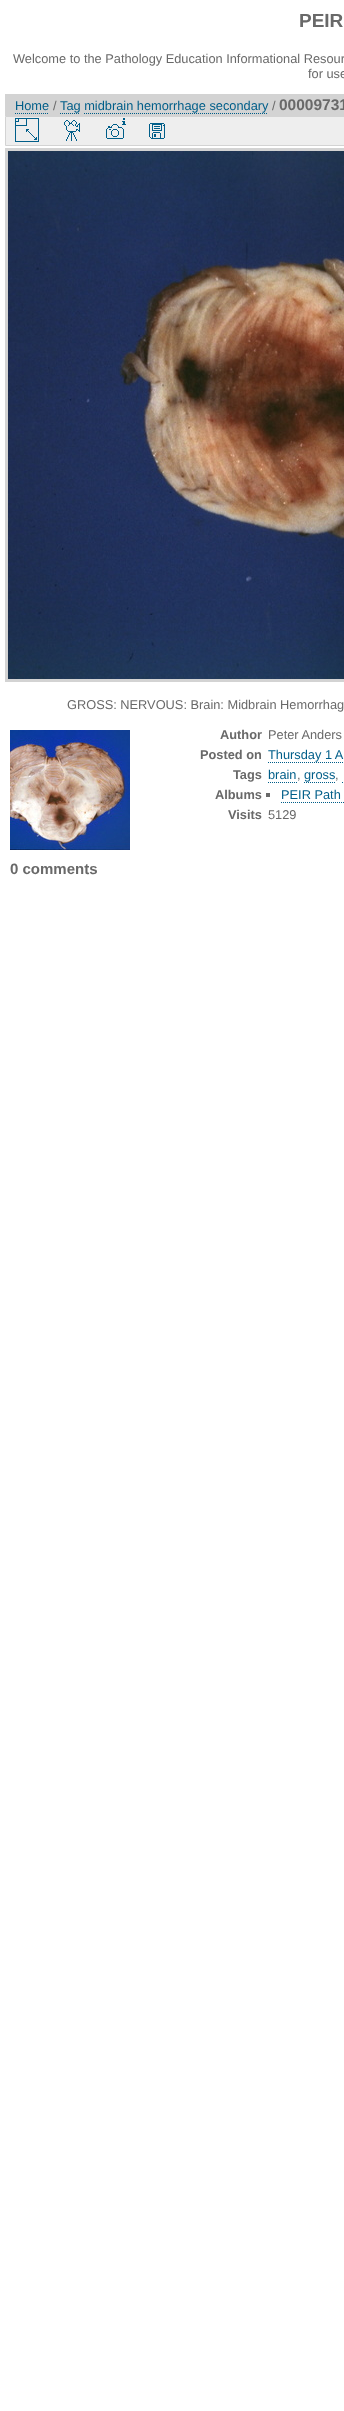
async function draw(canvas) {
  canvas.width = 344;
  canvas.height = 2411;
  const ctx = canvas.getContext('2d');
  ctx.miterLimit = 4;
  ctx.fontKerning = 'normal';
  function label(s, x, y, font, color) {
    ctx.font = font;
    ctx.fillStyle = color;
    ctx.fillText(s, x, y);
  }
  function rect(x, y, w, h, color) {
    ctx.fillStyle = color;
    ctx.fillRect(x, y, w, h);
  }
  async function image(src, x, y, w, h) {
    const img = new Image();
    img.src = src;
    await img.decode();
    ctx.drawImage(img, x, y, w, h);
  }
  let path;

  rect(0, 0, 344, 2411, '#fff');
  label('PEIR', 299, 27, 'bold 19px Liberation Sans', '#696969');
  label('Welcome to the Pathology Education Informational Resour', 13, 63, '12.8px Liberation Sans', '#696969');
  label('for use', 308, 78, '12.8px Liberation Sans', '#696969');
  rect(5, 94, 339, 22, '#d3d3d3');
  label('Home', 15, 110, '12.8px Liberation Sans', '#005e89');
  path = new Path2D('M15 113.5H49');
  ctx.strokeStyle = '#005e89';
  ctx.setLineDash([1, 1]);
  ctx.stroke(path);
  label('/', 53, 110, '12.8px Liberation Sans', '#696969');
  label('Tag midbrain hemorrhage secondary', 60, 110, '12.8px Liberation Sans', '#005e89');
  path = new Path2D('M60 113.5H80');
  ctx.stroke(path);
  label('/', 272, 110, '12.8px Liberation Sans', '#696969');
  label('00009731', 279, 110, 'bold 15.5px Liberation Sans', '#696969');
  path = new Path2D('M84 113.5H268');
  ctx.stroke(path);
  ctx.fillStyle = '#eee';
  ctx.beginPath();
  ctx.rect(5.5, 116.5, 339, 29);
  ctx.fill();
  ctx.strokeStyle = '#d3d3d3';
  ctx.setLineDash([]);
  ctx.stroke();
  await image('assets/img1.png', 15, 118, 24, 24);
  await image('assets/img2.png', 64, 120, 16, 21);
  await image('assets/img3.png', 106, 118, 20, 21);
  await image('assets/img4.png', 149, 123, 16, 16);
  ctx.lineWidth = 3;
  ctx.strokeRect(6.5, 149.5, 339, 531);
  await image('assets/img5.png', 8, 151, 336, 528);
  label('GROSS: NERVOUS: Brain: Midbrain Hemorrhag', 67, 709, '12.8px Liberation Sans', '#696969');
  await image('assets/img6.png', 10, 730, 120, 120);
  label('Author', 220, 739, 'bold 12.8px Liberation Sans', '#696969');
  label('Peter Anders', 268, 739, '12.8px Liberation Sans', '#696969');
  label('Posted on', 200, 759, 'bold 12.8px Liberation Sans', '#696969');
  label('Thursday 1 A', 268, 759, '12.8px Liberation Sans', '#005e89');
  path = new Path2D('M268 762.5H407');
  ctx.strokeStyle = '#005e89';
  ctx.lineWidth = 1;
  ctx.setLineDash([1, 1]);
  ctx.stroke(path);
  label('Tags', 233, 779, 'bold 12.8px Liberation Sans', '#696969');
  label('brain', 268, 779, '12.8px Liberation Sans', '#005e89');
  path = new Path2D('M268 782.5H297');
  ctx.stroke(path);
  label(',', 297, 779, '12.8px Liberation Sans', '#696969');
  label('gross', 304, 779, '12.8px Liberation Sans', '#005e89');
  path = new Path2D('M304 782.5H335');
  ctx.stroke(path);
  label(',', 335, 779, '12.8px Liberation Sans', '#696969');
  path = new Path2D('M342 782.5H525');
  ctx.stroke(path);
  label('Albums', 215, 799, 'bold 12.8px Liberation Sans', '#696969');
  rect(266, 793, 4, 4, '#696969');
  label('PEIR Path', 281, 799, '12.8px Liberation Sans', '#005e89');
  path = new Path2D('M281 802.5H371');
  ctx.stroke(path);
  label('Visits', 228, 819, 'bold 12.8px Liberation Sans', '#696969');
  label('5129', 268, 819, '12.8px Liberation Sans', '#696969');
  label('0 comments', 10, 874, 'bold 15px Liberation Sans', '#696969');
}

draw(document.querySelector('canvas'));
